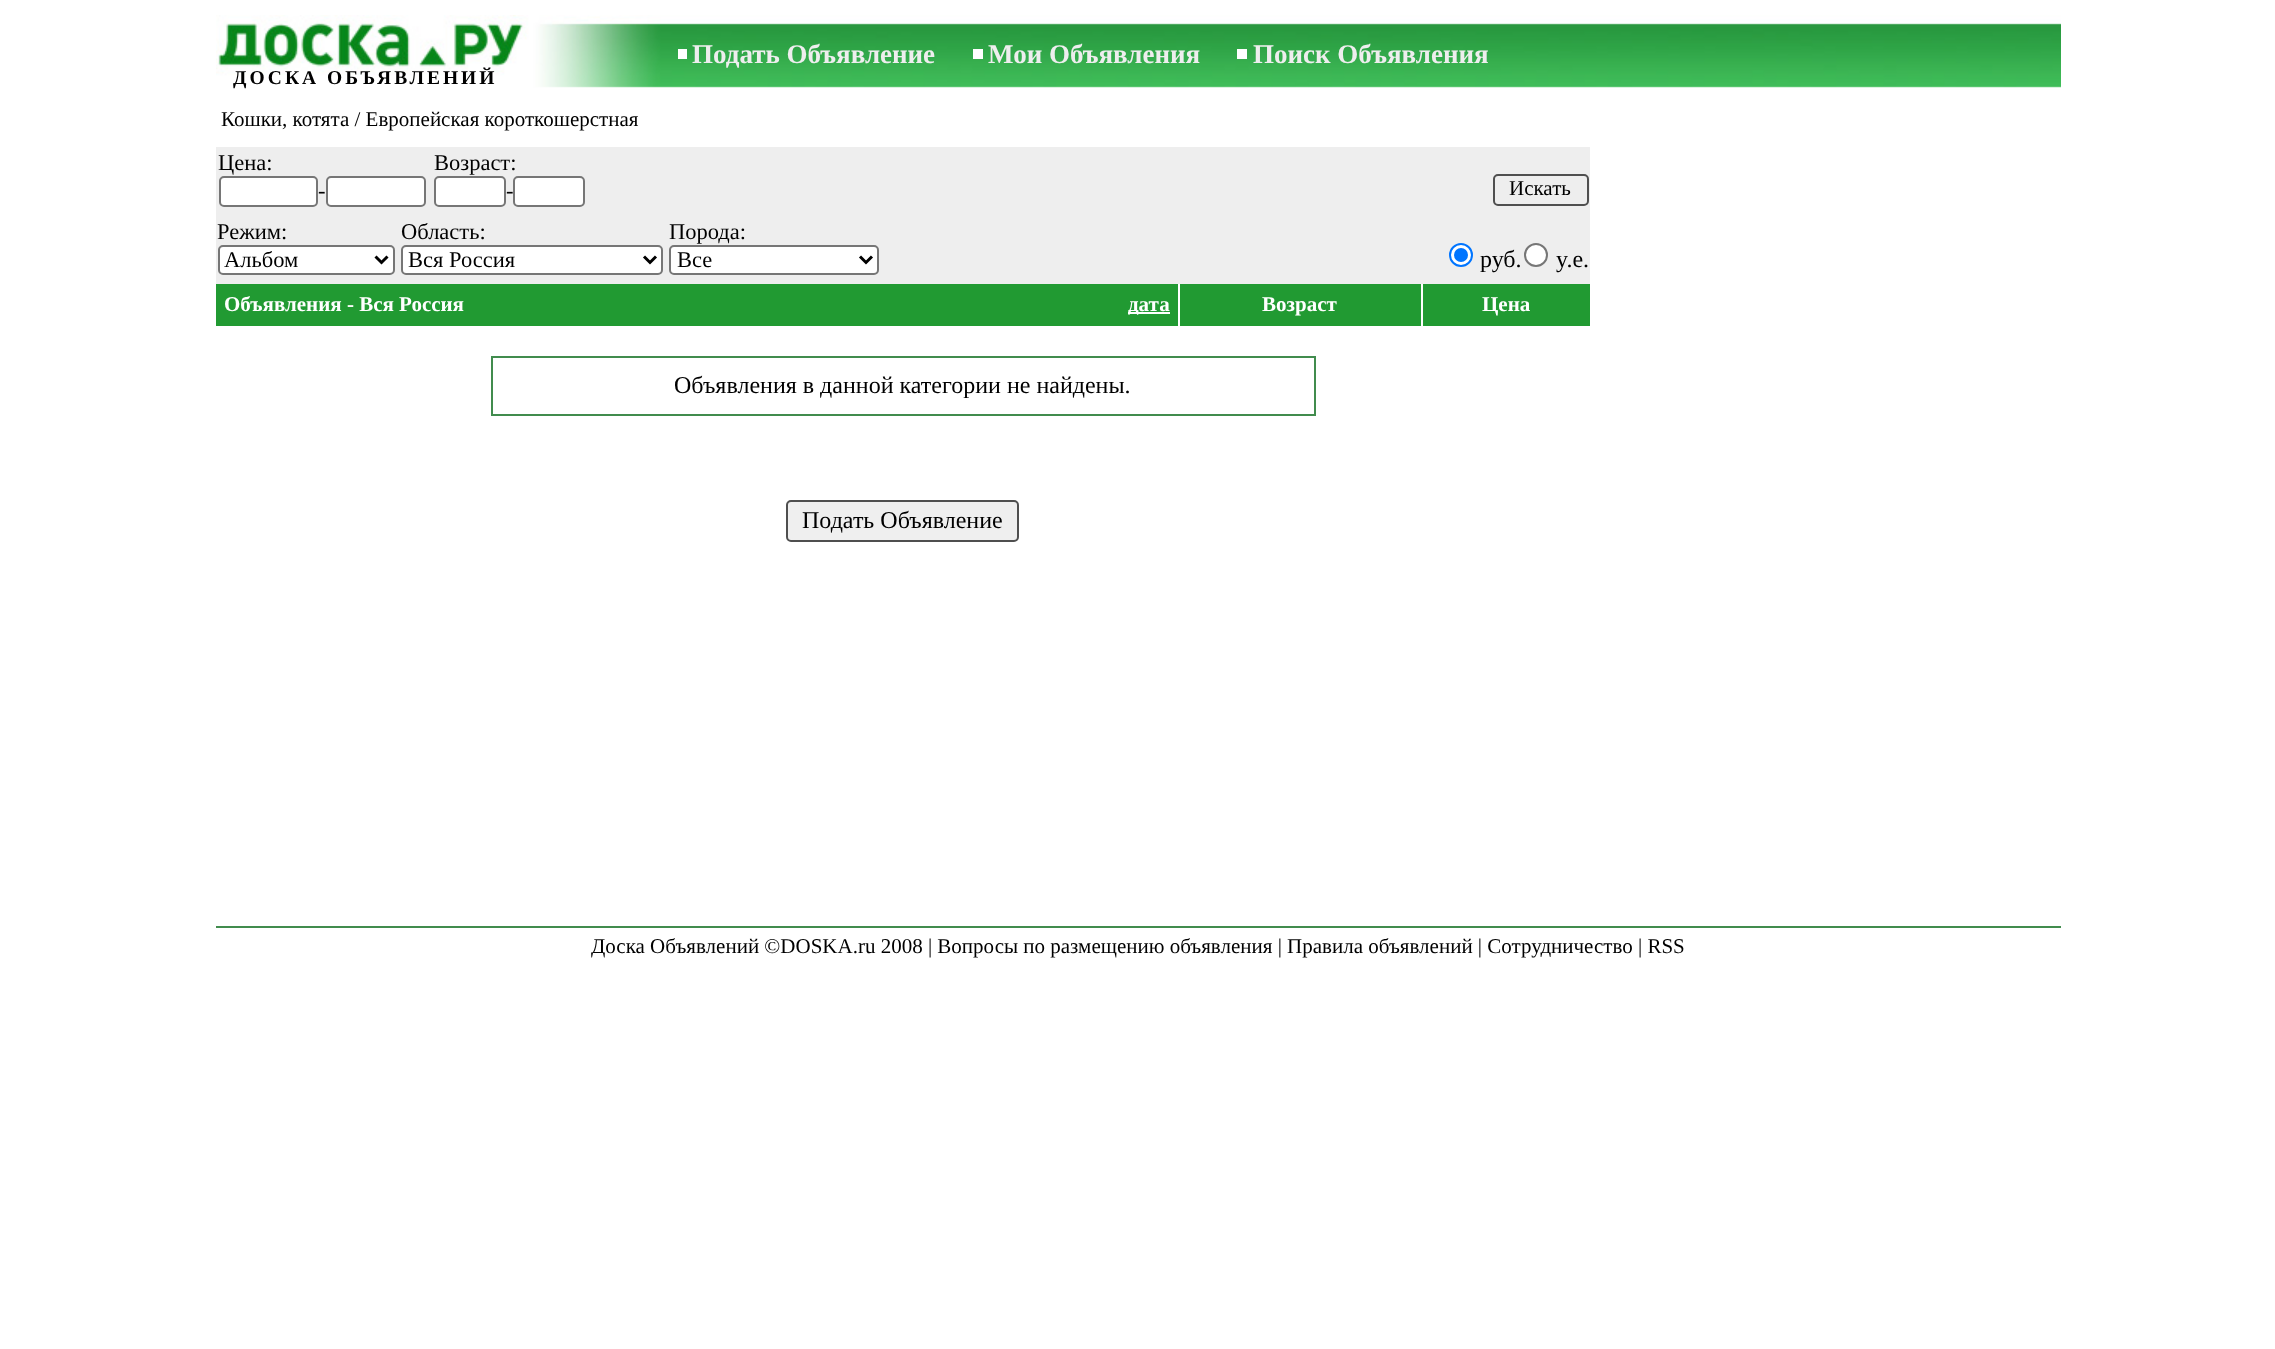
async function draw(canvas) {
  canvas.width = 2275;
  canvas.height = 1349;
  const ctx = canvas.getContext('2d');
  ctx.miterLimit = 4;
  ctx.fontKerning = 'normal';
  function label(s, x, y, font, color) {
    ctx.font = font;
    ctx.fillStyle = color;
    ctx.fillText(s, x, y);
  }
  function rect(x, y, w, h, color) {
    ctx.fillStyle = color;
    ctx.fillRect(x, y, w, h);
  }
  async function image(src, x, y, w, h) {
    const img = new Image();
    img.src = src;
    await img.decode();
    ctx.drawImage(img, x, y, w, h);
  }
  let path;

  rect(0, 0, 2275, 1349, '#fff');
  await image('assets/img1.png', 216, 15, 1845, 73);
  label('Подать Объявление', 692, 63, 'bold 27px Liberation Serif', '#eee');
  rect(678, 49, 9, 10, '#fff');
  label('Мои Объявления', 988, 63, 'bold 27px Liberation Serif', '#eee');
  rect(973, 49, 10, 10, '#fff');
  label('Поиск Объявления', 1253, 63, 'bold 27px Liberation Serif', '#eee');
  rect(1237, 49, 10, 10, '#fff');
  ctx.letterSpacing = '3px';
  label('ДОСКА ОБЪЯВЛЕНИЙ', 233, 84, 'bold 19.5px Liberation Serif', '#000');
  ctx.letterSpacing = '0px';
  label('Кошки, котята / Европейская короткошерстная', 221, 126, '21px Liberation Serif', '#000');
  rect(216, 147, 1374, 137, '#eee');
  label('Цена:', 218, 170, '22.5px Liberation Serif', '#000');
  ctx.fillStyle = '#fff';
  ctx.beginPath();
  ctx.roundRect(220, 177, 97, 29, 4);
  ctx.fill();
  ctx.strokeStyle = '#767676';
  ctx.lineWidth = 2;
  ctx.stroke();
  label('-', 318, 198, '22.5px Liberation Serif', '#000');
  ctx.fillStyle = '#fff';
  ctx.beginPath();
  ctx.roundRect(327, 177, 98, 29, 4);
  ctx.fill();
  ctx.stroke();
  label('Возраст:', 434, 170, '22.5px Liberation Serif', '#000');
  ctx.fillStyle = '#fff';
  ctx.beginPath();
  ctx.roundRect(435, 177, 70, 29, 4);
  ctx.fill();
  ctx.stroke();
  label('-', 506, 198, '22.5px Liberation Serif', '#000');
  ctx.fillStyle = '#fff';
  ctx.beginPath();
  ctx.roundRect(514, 177, 70, 29, 4);
  ctx.fill();
  ctx.stroke();
  ctx.beginPath();
  ctx.roundRect(1494, 175, 94, 30, 4);
  ctx.strokeStyle = '#4f4f4f';
  ctx.stroke();
  label('Искать', 1509, 195, '21px Liberation Serif', '#000');
  label('Режим:', 217, 239, '22.5px Liberation Serif', '#000');
  ctx.fillStyle = '#fff';
  ctx.beginPath();
  ctx.roundRect(219, 246, 175, 28, 4);
  ctx.fill();
  ctx.strokeStyle = '#767676';
  ctx.stroke();
  path = new Path2D('M375.5 256.5L381.5 262.5L387.5 256.5');
  ctx.strokeStyle = '#000';
  ctx.lineWidth = 3;
  ctx.stroke(path);
  label('Альбом', 224, 267, '22.5px Liberation Serif', '#000');
  label('Область:', 401, 239, '22.5px Liberation Serif', '#000');
  ctx.fillStyle = '#fff';
  ctx.beginPath();
  ctx.roundRect(402, 246, 260, 28, 4);
  ctx.fill();
  ctx.strokeStyle = '#767676';
  ctx.lineWidth = 2;
  ctx.stroke();
  path = new Path2D('M644 256.5L650 262.5L656 256.5');
  ctx.strokeStyle = '#000';
  ctx.lineWidth = 3;
  ctx.stroke(path);
  label('Вся Россия', 408, 267, '22.5px Liberation Serif', '#000');
  label('Порода:', 669, 239, '22.5px Liberation Serif', '#000');
  ctx.fillStyle = '#fff';
  ctx.beginPath();
  ctx.roundRect(670, 246, 208, 28, 4);
  ctx.fill();
  ctx.strokeStyle = '#767676';
  ctx.lineWidth = 2;
  ctx.stroke();
  path = new Path2D('M860 256.5L866 262.5L872 256.5');
  ctx.strokeStyle = '#000';
  ctx.lineWidth = 3;
  ctx.stroke(path);
  label('Все', 677, 267, '22.5px Liberation Serif', '#000');
  ctx.fillStyle = '#fff';
  ctx.beginPath();
  ctx.arc(1461, 255, 11, 0, 2 * Math.PI);
  ctx.fill();
  ctx.strokeStyle = '#0075ff';
  ctx.lineWidth = 2;
  ctx.stroke();
  ctx.fillStyle = '#0075ff';
  ctx.beginPath();
  ctx.arc(1461, 255, 7, 0, 2 * Math.PI);
  ctx.fill();
  label('руб.', 1480, 267, '24px Liberation Serif', '#000');
  ctx.fillStyle = '#fff';
  ctx.beginPath();
  ctx.arc(1536, 255, 11, 0, 2 * Math.PI);
  ctx.fill();
  ctx.strokeStyle = '#767676';
  ctx.stroke();
  label('y.e.', 1556, 267, '24px Liberation Serif', '#000');
  rect(216, 284, 962, 42, '#219a32');
  label('Объявления - Вся Россия', 224, 311, 'bold 21px Liberation Serif', '#fff');
  rect(1128, 312, 42, 2, '#fff');
  label('дата', 1128, 311, 'bold 21px Liberation Serif', '#fff');
  rect(1180, 284, 241, 42, '#219a32');
  label('Возраст', 1262, 311, 'bold 21px Liberation Serif', '#fff');
  rect(1423, 284, 167, 42, '#219a32');
  label('Цена', 1482, 311, 'bold 21px Liberation Serif', '#fff');
  ctx.strokeStyle = '#418c4e';
  ctx.strokeRect(492, 357, 823, 58);
  label('Объявления в данной категории не найдены.', 674, 393, '24px Liberation Serif', '#000');
  ctx.fillStyle = '#efefef';
  ctx.beginPath();
  ctx.roundRect(787, 501, 231, 40, 4);
  ctx.fill();
  ctx.strokeStyle = '#4f4f4f';
  ctx.stroke();
  label('Подать Объявление', 802, 528, '24px Liberation Serif', '#000');
  rect(216, 926, 1845, 2, '#418c4e');
  label('Доска Объявлений ©DOSKA.ru 2008 | Вопросы по размещению объявления | Правила объявлений | Сотрудничество | RSS', 591, 953, '21px Liberation Serif', '#000');
}

draw(document.querySelector('canvas'));
